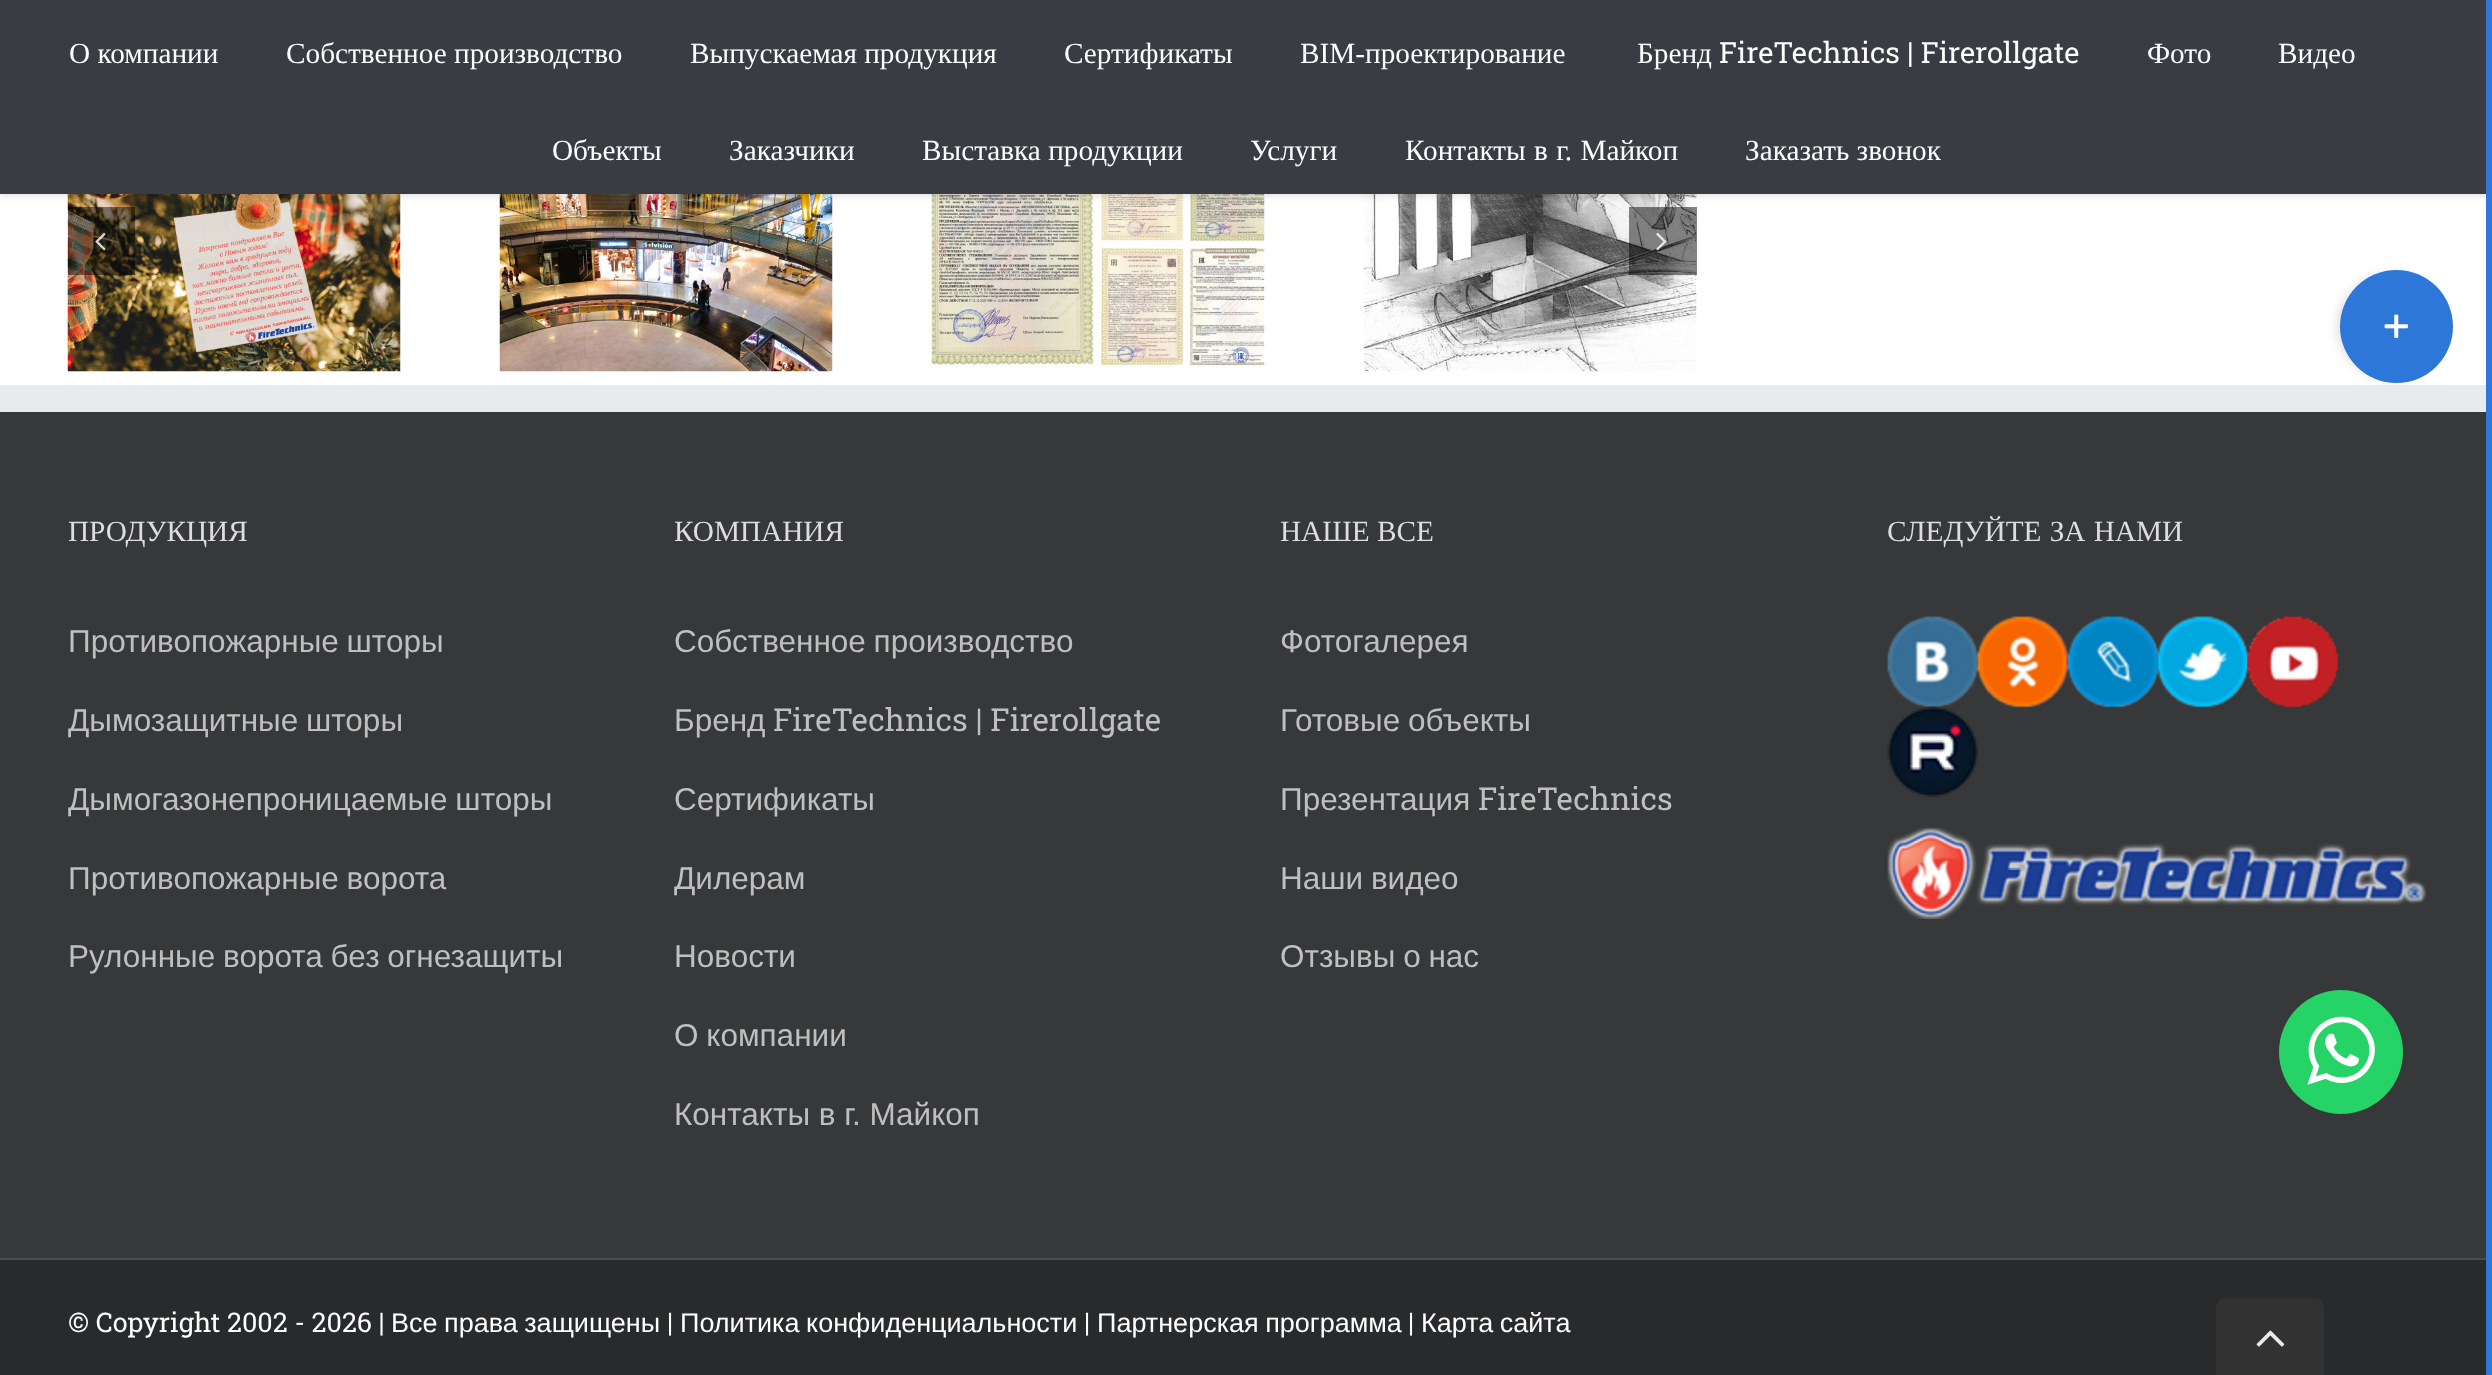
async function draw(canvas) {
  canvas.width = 2492;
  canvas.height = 1375;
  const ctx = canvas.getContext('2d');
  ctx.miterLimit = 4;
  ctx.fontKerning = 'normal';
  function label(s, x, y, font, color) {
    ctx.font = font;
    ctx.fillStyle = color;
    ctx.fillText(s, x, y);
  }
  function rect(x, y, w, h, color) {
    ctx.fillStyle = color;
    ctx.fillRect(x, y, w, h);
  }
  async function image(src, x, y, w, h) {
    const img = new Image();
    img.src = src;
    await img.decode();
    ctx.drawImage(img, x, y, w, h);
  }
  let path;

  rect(0, 0, 2492, 1375, '#fff');
  await image('assets/img2.png', 67, 194, 334, 178);
  await image('assets/img3.png', 499, 194, 334, 178);
  await image('assets/img4.png', 931, 194, 334, 173);
  await image('assets/img5.png', 1363, 194, 334, 178);
  rect(68, 207, 67, 68, '#0000007a');
  rect(1629, 207, 68, 68, '#0000007a');
  ctx.fillStyle = '#0000001f';
  ctx.filter = 'blur(3.5px)';
  ctx.beginPath();
  ctx.rect(0, 2, 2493, 194);
  ctx.fill();
  ctx.filter = 'none';
  rect(0, 0, 2486, 194, '#3a3c44');
  label('О компании', 69, 63, '29.25px Liberation Serif', '#fff');
  label('Собственное производство', 286, 63, '29.25px Liberation Serif', '#fff');
  label('Выпускаемая продукция', 690, 63, '29.25px Liberation Serif', '#fff');
  label('Сертификаты', 1064, 63, '29.25px Liberation Serif', '#fff');
  label('BIM-проектирование', 1300, 63, '29.25px Liberation Serif', '#fff');
  label('Бренд', 1637, 63, '29.25px Liberation Serif', '#fff');
  label('FireTechnics | Firerollgate', 1719, 63, '29.25px Roboto Slab', '#fff');
  label('Фото', 2147, 63, '29.25px Liberation Serif', '#fff');
  label('Видео', 2278, 63, '29.25px Liberation Serif', '#fff');
  label('Объекты', 552, 160, '29.25px Liberation Serif', '#fff');
  label('Заказчики', 729, 160, '29.25px Liberation Serif', '#fff');
  label('Выставка продукции', 922, 160, '29.25px Liberation Serif', '#fff');
  label('Услуги', 1250, 160, '29.25px Liberation Serif', '#fff');
  ctx.wordSpacing = '1px';
  label('Контакты в г. Майкоп', 1405, 160, '29.25px Liberation Serif', '#fff');
  ctx.wordSpacing = '0px';
  label('Заказать звонок', 1745, 160, '29.25px Liberation Serif', '#fff');
  rect(0, 385, 2486, 27, '#e9eaee');
  ctx.fillStyle = '#00000024';
  ctx.filter = 'blur(5.5px)';
  ctx.beginPath();
  ctx.roundRect(2338, 275, 103, 103, 51.5);
  ctx.fill();
  ctx.filter = 'none';
  ctx.fillStyle = '#2d77d8';
  ctx.beginPath();
  ctx.arc(2396.5, 326.5, 56.5, 0, 2 * Math.PI);
  ctx.fill();
  await image('assets/img1.png', 2384, 314, 24, 24);
  rect(0, 1258, 2492, 2, '#4b4c4d');
  rect(2486, 0, 6, 1375, '#2d77d8');
  await image('assets/img6.png', 95, 232, 11, 19);
  await image('assets/img7.png', 1656, 232, 11, 19);
  rect(0, 412, 2486, 846, '#363839');
  label('ПРОДУКЦИЯ', 68, 541, '29.25px Liberation Serif', '#ddd');
  ctx.wordSpacing = '-1px';
  label('Противопожарные шторы', 68, 652, '31.5px Liberation Sans', '#bfbfbf');
  label('Дымозащитные шторы', 68, 731, '31.5px Liberation Sans', '#bfbfbf');
  label('Дымогазонепроницаемые шторы', 68, 810, '31.5px Liberation Sans', '#bfbfbf');
  label('Противопожарные ворота', 68, 889, '31.5px Liberation Sans', '#bfbfbf');
  label('Рулонные ворота без огнезащиты', 68, 967, '31.5px Liberation Sans', '#bfbfbf');
  ctx.wordSpacing = '0px';
  label('КОМПАНИЯ', 674, 541, '29.25px Liberation Serif', '#ddd');
  ctx.wordSpacing = '-1px';
  label('Собственное производство', 674, 652, '31.5px Liberation Sans', '#bfbfbf');
  ctx.wordSpacing = '0px';
  label('Бренд', 674, 731, '31.5px Liberation Sans', '#bfbfbf');
  label('FireTechnics | Firerollgate', 773, 731, '31.5px Roboto Slab', '#bfbfbf');
  label('Сертификаты', 674, 810, '31.5px Liberation Sans', '#bfbfbf');
  label('Дилерам', 674, 889, '31.5px Liberation Sans', '#bfbfbf');
  label('Новости', 674, 967, '31.5px Liberation Sans', '#bfbfbf');
  ctx.wordSpacing = '-1px';
  label('О компании', 674, 1046, '31.5px Liberation Sans', '#bfbfbf');
  ctx.wordSpacing = '0px';
  label('Контакты в г. Майкоп', 674, 1125, '31.5px Liberation Sans', '#bfbfbf');
  label('НАШЕ ВСЕ', 1280, 541, '29.25px Liberation Serif', '#ddd');
  label('Фотогалерея', 1280, 652, '31.5px Liberation Sans', '#bfbfbf');
  ctx.wordSpacing = '-1px';
  label('Готовые объекты', 1280, 731, '31.5px Liberation Sans', '#bfbfbf');
  ctx.wordSpacing = '0px';
  label('Презентация', 1280, 810, '31.5px Liberation Sans', '#bfbfbf');
  label('FireTechnics', 1478, 810, '31.5px Roboto Slab', '#bfbfbf');
  ctx.wordSpacing = '-1px';
  label('Наши видео', 1280, 889, '31.5px Liberation Sans', '#bfbfbf');
  label('Отзывы о нас', 1280, 967, '31.5px Liberation Sans', '#bfbfbf');
  ctx.wordSpacing = '1px';
  label('СЛЕДУЙТЕ ЗА НАМИ', 1887, 541, '29.25px Liberation Serif', '#ddd');
  await image('assets/img8.png', 1887, 616, 92, 92);
  await image('assets/img9.png', 1977, 616, 92, 92);
  await image('assets/img10.png', 2067, 616, 92, 92);
  await image('assets/img11.png', 2157, 616, 92, 92);
  await image('assets/img12.png', 2247, 616, 92, 92);
  await image('assets/img13.png', 1887, 706, 91, 91);
  await image('assets/img14.png', 1887, 827, 539, 92);
  ctx.fillStyle = '#25d366';
  ctx.beginPath();
  ctx.arc(2341, 1052, 62, 0, 2 * Math.PI);
  ctx.fill();
  await image('assets/img15.png', 2307, 1016, 68, 69);
  rect(0, 1260, 2486, 115, '#282a2b');
  ctx.wordSpacing = '0px';
  label('© Copyright 2002 - 2026 |', 68, 1332, '27px Roboto Slab', '#fff');
  ctx.wordSpacing = '-1px';
  label('Все права защищены', 391, 1332, '27px Liberation Sans', '#fff');
  ctx.wordSpacing = '0px';
  label('|', 667, 1332, '27px Roboto Slab', '#fff');
  ctx.wordSpacing = '-1px';
  label('Политика конфиденциальности', 680, 1332, '27px Liberation Sans', '#fff');
  ctx.wordSpacing = '0px';
  label('|', 1084, 1332, '27px Roboto Slab', '#fff');
  ctx.wordSpacing = '-1px';
  label('Партнерская программа', 1097, 1332, '27px Liberation Sans', '#fff');
  ctx.wordSpacing = '0px';
  label('|', 1408, 1332, '27px Roboto Slab', '#fff');
  ctx.wordSpacing = '-1px';
  label('Карта сайта', 1421, 1332, '27px Liberation Sans', '#fff');
  ctx.fillStyle = '#323232';
  path = new Path2D('M2225 1298H2315C2320 1298 2324 1302 2324 1307V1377H2216V1307C2216 1302 2220 1298 2225 1298Z');
  ctx.fill(path);
  await image('assets/img16.png', 2256, 1330, 29, 17);
}

draw(document.querySelector('canvas'));
